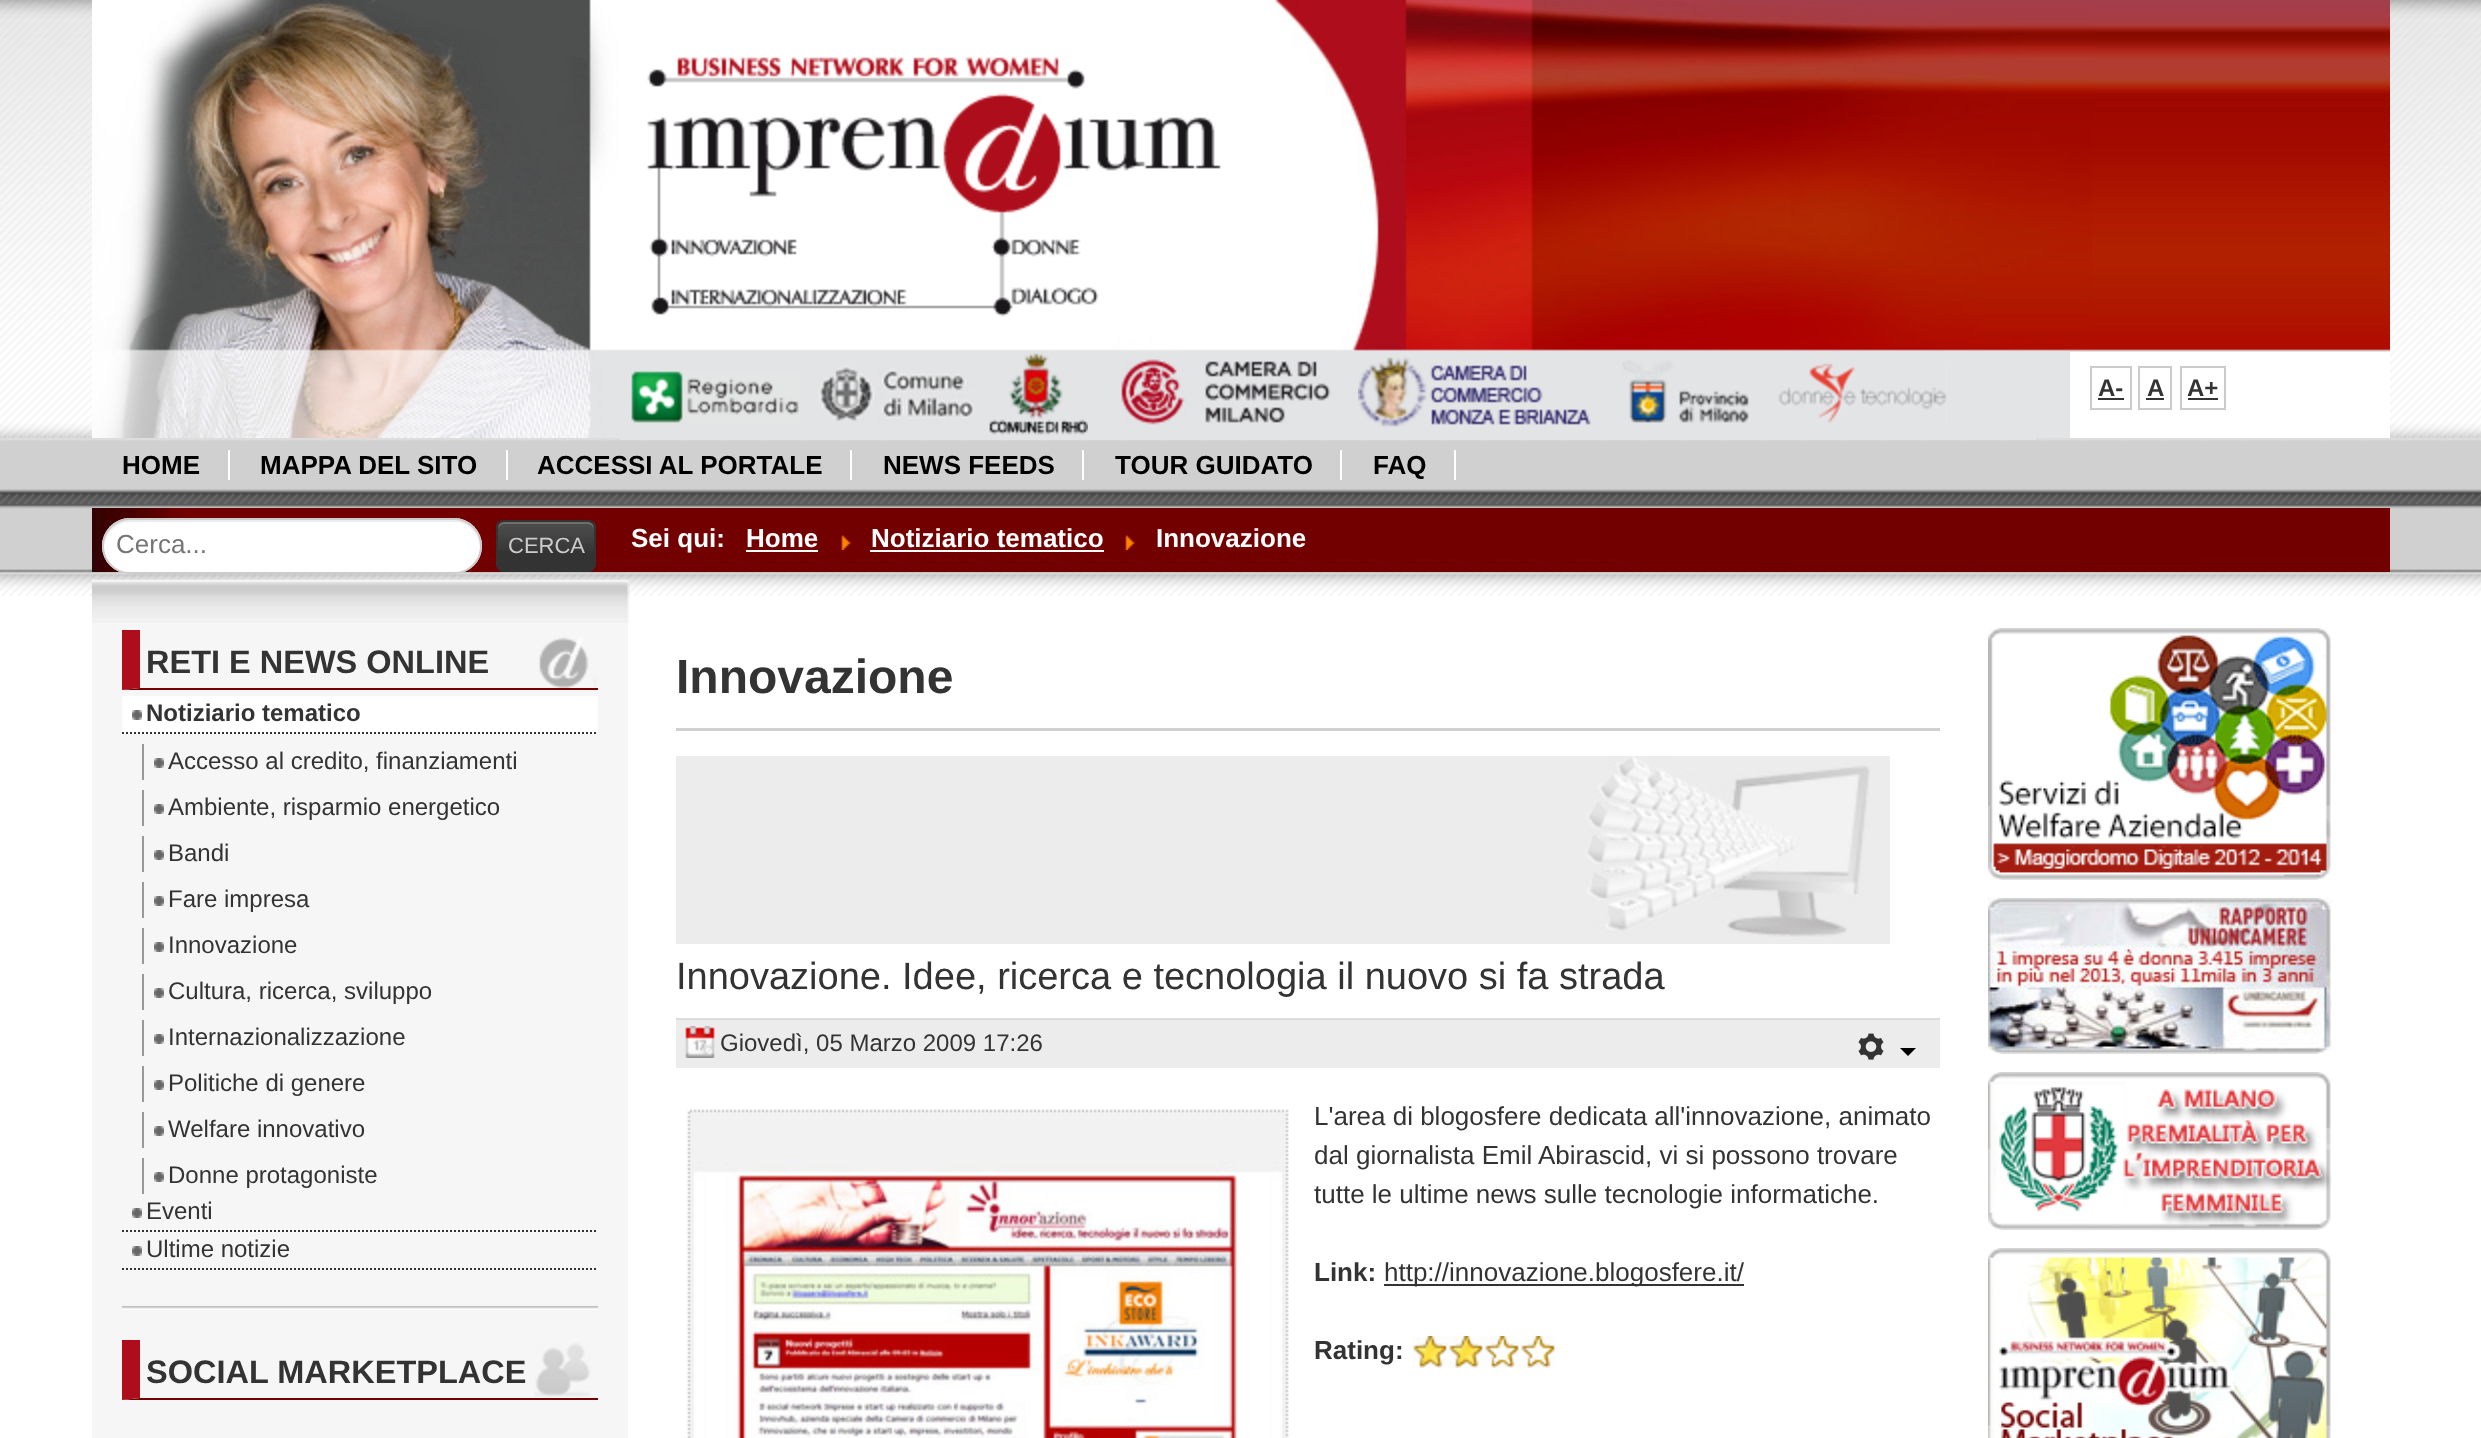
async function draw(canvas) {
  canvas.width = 2481;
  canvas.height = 1438;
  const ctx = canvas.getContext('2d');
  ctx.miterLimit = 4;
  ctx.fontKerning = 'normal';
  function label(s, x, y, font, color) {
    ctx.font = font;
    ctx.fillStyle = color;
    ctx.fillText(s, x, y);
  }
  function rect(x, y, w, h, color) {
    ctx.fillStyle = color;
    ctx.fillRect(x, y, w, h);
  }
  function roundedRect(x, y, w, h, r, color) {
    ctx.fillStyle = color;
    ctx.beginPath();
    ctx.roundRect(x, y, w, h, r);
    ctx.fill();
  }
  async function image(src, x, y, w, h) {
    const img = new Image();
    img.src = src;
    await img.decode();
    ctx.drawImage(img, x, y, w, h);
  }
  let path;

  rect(0, 0, 2481, 1438, '#fff');
  await image('assets/img1.png', 0, 0, 2481, 596);
  await image('assets/img2.png', 2092, 0, 298, 352);
  await image('assets/img3.png', 92, 0, 2000, 438);
  await image('assets/img4.png', 647, 57, 574, 260);
  rect(620, 438, 1416, 2, '#e3e4e5');
  await image('assets/img5.png', 631, 371, 168, 52);
  await image('assets/img6.png', 818, 366, 156, 56);
  await image('assets/img7.png', 989, 353, 99, 82);
  await image('assets/img8.png', 1121, 359, 210, 66);
  await image('assets/img9.png', 1358, 357, 233, 70);
  await image('assets/img10.png', 1622, 360, 127, 63);
  await image('assets/img11.png', 1778, 363, 169, 60);
  rect(2070, 352, 320, 86, '#fff');
  ctx.strokeStyle = '#ccc';
  ctx.lineWidth = 2;
  ctx.strokeRect(2091, 367, 40, 42);
  label('A-', 2098, 396, 'bold 24px Liberation Sans', '#333');
  rect(2098, 398, 26, 2, '#333');
  ctx.strokeRect(2139, 367, 32, 42);
  label('A', 2147, 396, 'bold 24px Liberation Sans', '#333');
  rect(2146, 398, 18, 2, '#333');
  ctx.strokeRect(2181, 367, 44, 42);
  label('A+', 2187, 396, 'bold 24px Liberation Sans', '#333');
  rect(2188, 398, 30, 2, '#333');
  label('HOME', 122, 474, 'bold 26px Liberation Sans', '#000');
  rect(228, 450, 2, 30, '#fff');
  label('MAPPA DEL SITO', 260, 474, 'bold 26px Liberation Sans', '#000');
  rect(506, 450, 2, 30, '#fff');
  label('ACCESSI AL PORTALE', 537, 474, 'bold 26px Liberation Sans', '#000');
  rect(850, 450, 2, 30, '#fff');
  label('NEWS FEEDS', 883, 474, 'bold 26px Liberation Sans', '#000');
  rect(1082, 450, 2, 30, '#fff');
  label('TOUR GUIDATO', 1115, 474, 'bold 26px Liberation Sans', '#000');
  rect(1340, 450, 2, 30, '#fff');
  label('FAQ', 1373, 474, 'bold 26px Liberation Sans', '#000');
  rect(1454, 450, 2, 30, '#fff');
  await image('assets/img12.png', 92, 508, 135, 64);
  await image('assets/img14.png', 227, 508, 2163, 64);
  roundedRect(102, 518, 380, 56, 28, '#fff');
  ctx.fillStyle = '#ececec';
  path = new Path2D('M130 522H454C468 522 479 533 480 547C481 532 469 520 454 520H130C115 520 103 532 104 547C105 533 116 522 130 522Z');
  ctx.fill(path);
  ctx.beginPath();
  ctx.roundRect(103, 519, 378, 54, 27);
  ctx.stroke();
  label('Cerca...', 116, 553, '26px Liberation Sans', '#757575');
  roundedRect(496, 520, 100, 52, 8, '#333');
  await image('assets/img13.png', 496, 522, 100, 29);
  ctx.fillStyle = '#ffffff33';
  path = new Path2D('M504 524H588C591 524 594 527 594 530C594 518 583 522 574 522H518C509 522 498 518 498 530C498 527 501 524 504 524Z');
  ctx.fill(path);
  ctx.beginPath();
  ctx.roundRect(497, 521, 98, 50, 7);
  ctx.strokeStyle = '#333';
  ctx.stroke();
  label('CERCA', 508, 553, '22px Liberation Sans', '#ccc');
  label('Sei qui:', 631, 547, 'bold 26px Liberation Sans', '#fff');
  label('Home', 746, 547, 'bold 26px Liberation Sans', '#fff');
  rect(746, 550, 72, 2, '#fff');
  await image('assets/img15.png', 841, 535, 10, 15);
  label('Notiziario tematico', 871, 547, 'bold 26px Liberation Sans', '#fff');
  rect(870, 550, 234, 2, '#fff');
  await image('assets/img15.png', 1125, 535, 10, 15);
  label('Innovazione', 1156, 547, 'bold 26px Liberation Sans', '#fff');
  rect(92, 580, 536, 858, '#f6f6f6');
  await image('assets/img16.png', 92, 579, 538, 44);
  await image('assets/img17.png', 122, 1306, 476, 4);
  await image('assets/img18.png', 539, 637, 58, 51);
  ctx.fillStyle = '#720000';
  path = new Path2D('M598 690H122L140 688H598Z');
  ctx.fill(path);
  ctx.fillStyle = '#ae0e1b';
  path = new Path2D('M122 690V630H140V688Z');
  ctx.fill(path);
  label('RETI E NEWS ONLINE', 146, 673, 'bold 32.5px Liberation Sans', '#333');
  rect(122, 696, 476, 38, '#fff');
  await image('assets/img19.png', 132, 710, 10, 10);
  path = new Path2D('M122 733H598');
  ctx.setLineDash([2, 2]);
  ctx.stroke(path);
  label('Notiziario tematico', 146, 721, 'bold 24px Liberation Sans', '#333');
  await image('assets/img19.png', 154, 758, 10, 10);
  rect(142, 744, 2, 36, '#999');
  label('Accesso al credito, finanziamenti', 168, 769, '24px Liberation Sans', '#333');
  await image('assets/img19.png', 154, 804, 10, 10);
  rect(142, 790, 2, 36, '#999');
  label('Ambiente, risparmio energetico', 168, 815, '24px Liberation Sans', '#333');
  await image('assets/img19.png', 154, 850, 10, 10);
  rect(142, 836, 2, 36, '#999');
  label('Bandi', 168, 861, '24px Liberation Sans', '#333');
  await image('assets/img19.png', 154, 896, 10, 10);
  rect(142, 882, 2, 36, '#999');
  label('Fare impresa', 168, 907, '24px Liberation Sans', '#333');
  await image('assets/img19.png', 154, 942, 10, 10);
  rect(142, 928, 2, 36, '#999');
  label('Innovazione', 168, 953, '24px Liberation Sans', '#333');
  await image('assets/img19.png', 154, 988, 10, 10);
  rect(142, 974, 2, 36, '#999');
  label('Cultura, ricerca, sviluppo', 168, 999, '24px Liberation Sans', '#333');
  await image('assets/img19.png', 154, 1034, 10, 10);
  rect(142, 1020, 2, 36, '#999');
  label('Internazionalizzazione', 168, 1045, '24px Liberation Sans', '#333');
  await image('assets/img19.png', 154, 1080, 10, 10);
  rect(142, 1066, 2, 36, '#999');
  label('Politiche di genere', 168, 1091, '24px Liberation Sans', '#333');
  await image('assets/img19.png', 154, 1126, 10, 10);
  rect(142, 1112, 2, 36, '#999');
  label('Welfare innovativo', 168, 1137, '24px Liberation Sans', '#333');
  await image('assets/img19.png', 154, 1172, 10, 10);
  rect(142, 1158, 2, 36, '#999');
  label('Donne protagoniste', 168, 1183, '24px Liberation Sans', '#333');
  await image('assets/img19.png', 132, 1208, 10, 10);
  path = new Path2D('M122 1231H598');
  ctx.stroke(path);
  label('Eventi', 146, 1219, '24px Liberation Sans', '#333');
  await image('assets/img19.png', 132, 1246, 10, 10);
  path = new Path2D('M122 1269H598');
  ctx.stroke(path);
  label('Ultime notizie', 146, 1257, '24px Liberation Sans', '#333');
  await image('assets/img20.png', 534, 1343, 57, 54);
  ctx.fillStyle = '#720000';
  path = new Path2D('M598 1400H122L140 1398H598Z');
  ctx.fill(path);
  ctx.fillStyle = '#ae0e1b';
  path = new Path2D('M122 1400V1340H140V1398Z');
  ctx.fill(path);
  label('SOCIAL MARKETPLACE', 146, 1383, 'bold 32.5px Liberation Sans', '#333');
  rect(676, 728, 1264, 3, '#d0d0d0');
  label('Innovazione', 676, 693, 'bold 48px Liberation Sans', '#333');
  rect(676, 756, 1214, 188, '#ececec');
  await image('assets/img21.png', 1585, 756, 285, 181);
  label('Innovazione. Idee, ricerca e tecnologia il nuovo si fa strada', 676, 989, '38px Liberation Sans', '#333');
  rect(676, 1020, 1264, 48, '#ececec');
  await image('assets/img22.png', 685, 1026, 30, 32);
  rect(676, 1018, 1264, 2, '#ddd');
  label('Giovedì, 05 Marzo 2009 17:26', 720, 1051, '24px Liberation Sans', '#333');
  await image('assets/img23.png', 1858, 1033, 26, 27);
  ctx.fillStyle = '#000';
  path = new Path2D('M1900 1048H1916L1908 1056Z');
  ctx.fill(path);
  await image('assets/img24.png', 686, 1108, 603, 330);
  label('L\'area di blogosfere dedicata all\'innovazione, animato', 1314, 1125, '26px Liberation Sans', '#333');
  label('dal giornalista Emil Abirascid, vi si possono trovare', 1314, 1164, '26px Liberation Sans', '#333');
  label('tutte le ultime news sulle tecnologie informatiche.', 1314, 1203, '26px Liberation Sans', '#333');
  label('Link:', 1314, 1281, 'bold 26px Liberation Sans', '#333');
  rect(1384, 1284, 360, 2, '#333');
  label('http://innovazione.blogosfere.it/', 1384, 1281, '26px Liberation Sans', '#333');
  label('Rating:', 1314, 1359, 'bold 26px Liberation Sans', '#333');
  await image('assets/img25.png', 1412, 1336, 144, 32);
  await image('assets/img26.png', 1988, 628, 344, 252);
  await image('assets/img27.png', 1988, 898, 344, 156);
  await image('assets/img28.png', 1988, 1072, 344, 158);
  await image('assets/img29.png', 1988, 1248, 343, 190);
}

draw(document.querySelector('canvas'));
